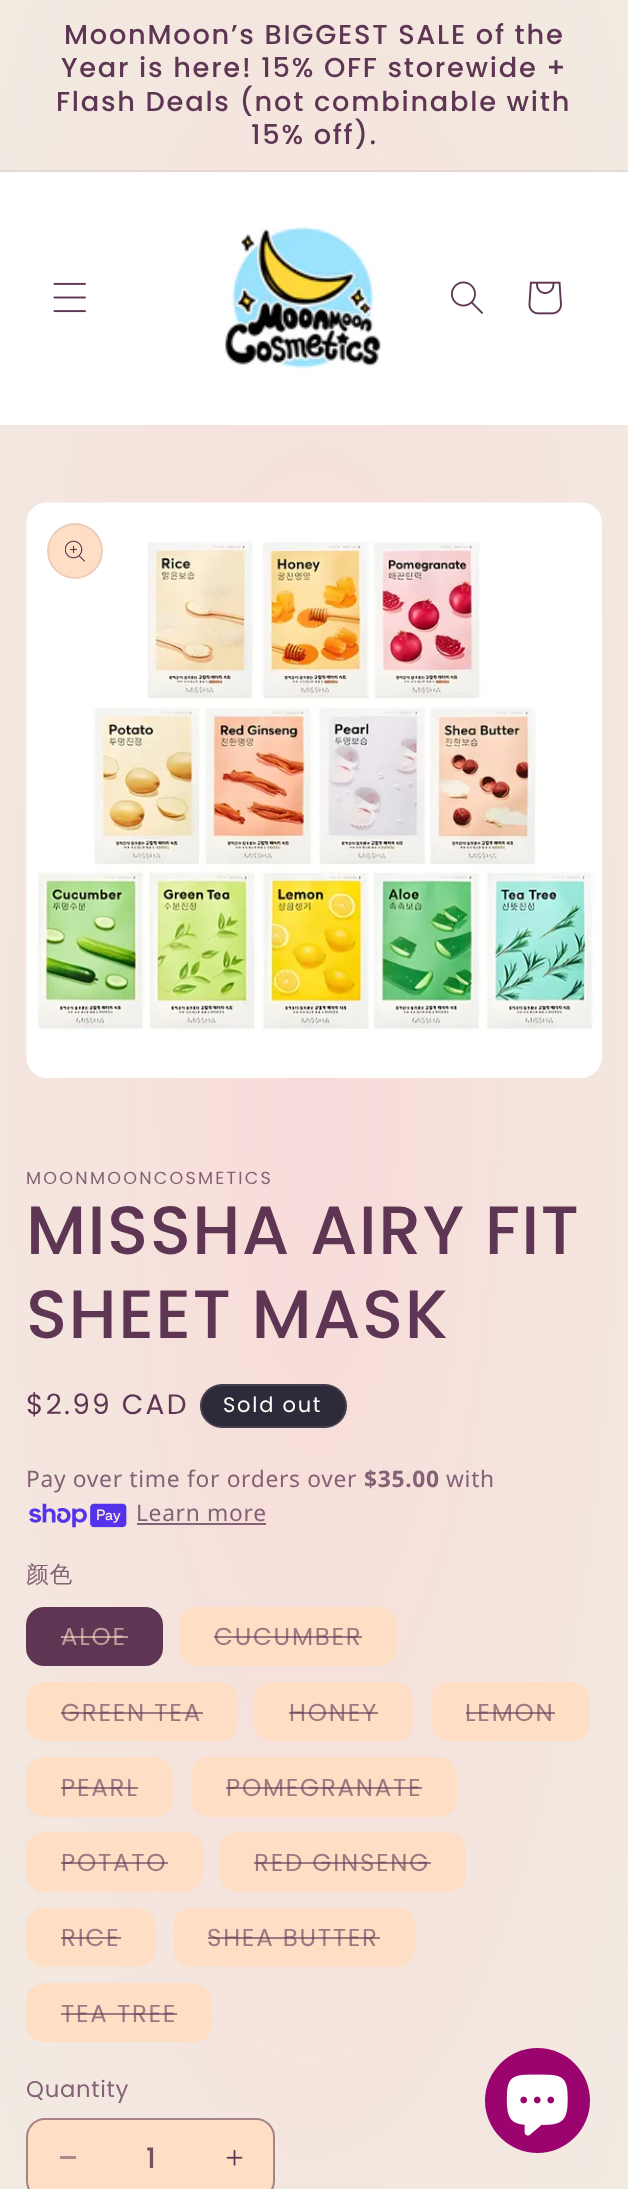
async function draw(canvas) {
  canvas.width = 628;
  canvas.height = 2189;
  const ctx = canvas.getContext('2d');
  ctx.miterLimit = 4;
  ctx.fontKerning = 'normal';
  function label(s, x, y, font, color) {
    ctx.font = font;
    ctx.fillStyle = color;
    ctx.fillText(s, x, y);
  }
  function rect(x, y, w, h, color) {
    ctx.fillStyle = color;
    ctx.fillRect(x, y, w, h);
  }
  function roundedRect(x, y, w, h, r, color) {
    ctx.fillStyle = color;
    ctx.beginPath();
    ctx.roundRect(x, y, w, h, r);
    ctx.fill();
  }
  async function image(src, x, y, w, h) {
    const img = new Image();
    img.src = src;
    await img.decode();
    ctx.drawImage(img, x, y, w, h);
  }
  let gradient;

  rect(0, 0, 628, 2189, '#fff');
  gradient = ctx.createRadialGradient(314, 314.07, 0, 314, 314.07, 444);
  gradient.addColorStop(0, '#f7dada');
  gradient.addColorStop(0.29, '#f7e0db');
  gradient.addColorStop(1, '#f1ebe2');
  ctx.fillStyle = gradient;
  ctx.beginPath();
  ctx.rect(0, 0, 628, 457);
  ctx.save();
  ctx.clip();
  ctx.scale(1, 1548 / 444);
  ctx.fillRect(0, 0, 628, 628);
  ctx.restore();
  gradient = ctx.createRadialGradient(314, 314.07, 0, 314, 314.07, 444);
  gradient.addColorStop(0, '#ebcdcf');
  gradient.addColorStop(0.29, '#ebd2d0');
  gradient.addColorStop(1, '#e5ddd7');
  ctx.fillStyle = gradient;
  ctx.beginPath();
  ctx.rect(0, 170, 628, 2);
  ctx.save();
  ctx.clip();
  ctx.scale(1, 1548 / 444);
  ctx.fillRect(0, 0, 628, 628);
  ctx.restore();
  ctx.letterSpacing = '1.75px';
  label('MoonMoon’s BIGGEST SALE of the', 64, 44, '500 27.25px Poppins', '#5e3653');
  label('Year is here! 15% OFF storewide +', 61, 77, '500 27.25px Poppins', '#5e3653');
  label('Flash Deals (not combinable with', 56, 111, '500 27.25px Poppins', '#5e3653');
  label('15% off).', 251, 144, '500 27.25px Poppins', '#5e3653');
  gradient = ctx.createRadialGradient(314, 314.07, 0, 314, 314.07, 444);
  gradient.addColorStop(0, '#fff');
  gradient.addColorStop(1, '#fff');
  gradient.addColorStop(1, '#ffff4b');
  ctx.fillStyle = gradient;
  ctx.beginPath();
  ctx.rect(0, 172, 628, 253);
  ctx.save();
  ctx.clip();
  ctx.scale(1, 1548 / 444);
  ctx.fillRect(0, 0, 628, 628);
  ctx.restore();
  await image('assets/img1.png', 53, 282, 33, 31);
  await image('assets/img2.png', 224, 224, 158, 147);
  await image('assets/img3.png', 451, 281, 32, 33);
  await image('assets/img4.png', 528, 281, 34, 34);
  gradient = ctx.createRadialGradient(314, 314.07, 0, 314, 314.07, 444);
  gradient.addColorStop(0, '#f7dada');
  gradient.addColorStop(0.29, '#f7e0db');
  gradient.addColorStop(1, '#f1ebe2');
  ctx.fillStyle = gradient;
  ctx.beginPath();
  ctx.rect(0, 457, 628, 1732);
  ctx.save();
  ctx.clip();
  ctx.scale(1, 1548 / 444);
  ctx.fillRect(0, 0, 628, 628);
  ctx.restore();
  gradient = ctx.createRadialGradient(314, 314.07, 0, 314, 314.07, 444);
  gradient.addColorStop(0, '#845f75');
  gradient.addColorStop(0.29, '#846175');
  gradient.addColorStop(1, '#836377');
  ctx.fillStyle = gradient;
  ctx.beginPath();
  ctx.rect(137, 1523, 129, 2);
  ctx.save();
  ctx.clip();
  ctx.scale(1, 1548 / 444);
  ctx.fillRect(0, 0, 628, 628);
  ctx.restore();
  await image('assets/img5.png', 26, 502, 576, 576);
  ctx.fillStyle = '#fedec5';
  ctx.beginPath();
  ctx.arc(75, 551, 28, 0, 2 * Math.PI);
  ctx.fill();
  ctx.beginPath();
  ctx.arc(75, 551, 27, 0, 2 * Math.PI);
  ctx.strokeStyle = '#5e36531a';
  ctx.lineWidth = 2;
  ctx.stroke();
  await image('assets/img6.png', 65, 540, 20, 22);
  ctx.letterSpacing = '2.25px';
  label('MOONMOONCOSMETICS', 26, 1184, '17.5px Poppins', '#846175');
  ctx.letterSpacing = '1.4px';
  label('MISSHA AIRY FIT', 26, 1254, '500 68.25px Poppins', '#5e3653');
  label('SHEET MASK', 26, 1338, '500 68.25px Poppins', '#5e3653');
  ctx.letterSpacing = '2.25px';
  label('$2.99 CAD', 26, 1414, '28px Poppins', '#5e3653');
  roundedRect(200, 1384, 147, 44, 22, '#2e2a39');
  ctx.beginPath();
  ctx.roundRect(201, 1385, 145, 42, 21);
  ctx.strokeStyle = '#fdfbf71a';
  ctx.stroke();
  ctx.letterSpacing = '1.75px';
  label('Sold out', 223, 1412, '21px Poppins', '#fdfbf7');
  ctx.letterSpacing = '0.7px';
  label('Pay over time for orders over', 26, 1487, '22.75px Noto Sans', '#846175');
  label('$35.00', 364, 1487, 'bold 22.75px Noto Sans', '#846175');
  label('with', 446, 1487, '22.75px Noto Sans', '#846175');
  await image('assets/img7.png', 29, 1503, 98, 25);
  label('Learn more', 136, 1521, '22.75px Noto Sans', '#846175');
  label('颜色', 26, 1582, '500 22.75px WenQuanYi Zen Hei', '#846175');
  roundedRect(26, 1607, 137, 59, 18, '#5e3653');
  ctx.letterSpacing = '1.75px';
  label('ALOE', 61, 1645, '24.5px Poppins', '#be9b97');
  rect(61, 1636, 67, 2, '#fedec599');
  roundedRect(179, 1607, 218, 59, 18, '#fedec5');
  label('CUCUMBER', 214, 1645, '24.5px Poppins', '#9e7981');
  rect(214, 1636, 148, 2, '#5e365399');
  roundedRect(26, 1682, 212, 59, 18, '#fedec5');
  label('GREEN TEA', 61, 1721, '24.5px Poppins', '#9e7981');
  rect(61, 1712, 142, 2, '#5e365399');
  roundedRect(254, 1682, 159, 59, 18, '#fedec5');
  label('HONEY', 289, 1721, '24.5px Poppins', '#9e7981');
  rect(289, 1712, 89, 2, '#5e365399');
  roundedRect(431, 1682, 159, 59, 18, '#fedec5');
  label('LEMON', 465, 1721, '24.5px Poppins', '#9e7981');
  rect(466, 1712, 89, 2, '#5e365399');
  roundedRect(26, 1757, 147, 60, 18, '#fedec5');
  label('PEARL', 61, 1796, '24.5px Poppins', '#9e7981');
  rect(61, 1787, 77, 2, '#5e365399');
  roundedRect(191, 1757, 266, 60, 18, '#fedec5');
  label('POMEGRANATE', 226, 1796, '24.5px Poppins', '#9e7981');
  rect(226, 1787, 196, 2, '#5e365399');
  roundedRect(26, 1832, 177, 60, 18, '#fedec5');
  label('POTATO', 61, 1871, '24.5px Poppins', '#9e7981');
  rect(61, 1862, 107, 2, '#5e365399');
  roundedRect(219, 1832, 247, 60, 18, '#fedec5');
  label('RED GINSENG', 254, 1871, '24.5px Poppins', '#9e7981');
  rect(254, 1862, 177, 2, '#5e365399');
  roundedRect(26, 1908, 130, 59, 18, '#fedec5');
  label('RICE', 61, 1946, '24.5px Poppins', '#9e7981');
  rect(61, 1937, 60, 2, '#5e365399');
  roundedRect(173, 1908, 242, 59, 18, '#fedec5');
  label('SHEA BUTTER', 207, 1946, '24.5px Poppins', '#9e7981');
  rect(208, 1937, 172, 2, '#5e365399');
  roundedRect(26, 1983, 186, 59, 18, '#fedec5');
  label('TEA TREE', 61, 2022, '24.5px Poppins', '#9e7981');
  rect(61, 2013, 116, 2, '#5e365399');
  ctx.letterSpacing = '0.7px';
  label('Quantity', 26, 2097, '22.75px Poppins', '#846175');
  roundedRect(26, 2118, 249, 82, 19, '#fedec5');
  rect(60, 2156, 16, 3, '#ae8a8c');
  await image('assets/img8.png', 226, 2149, 17, 17);
  ctx.beginPath();
  ctx.roundRect(27, 2119, 247, 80, 18);
  ctx.strokeStyle = '#5e36538c';
  ctx.stroke();
  ctx.letterSpacing = '0px';
  label('1', 146, 2168, '500 28px Poppins', '#764f64');
  ctx.fillStyle = '#9b046f';
  ctx.beginPath();
  ctx.arc(537.5, 2100.5, 52.5, 0, 2 * Math.PI);
  ctx.fill();
  await image('assets/img9.png', 506, 2074, 62, 62);
}

draw(document.querySelector('canvas'));
